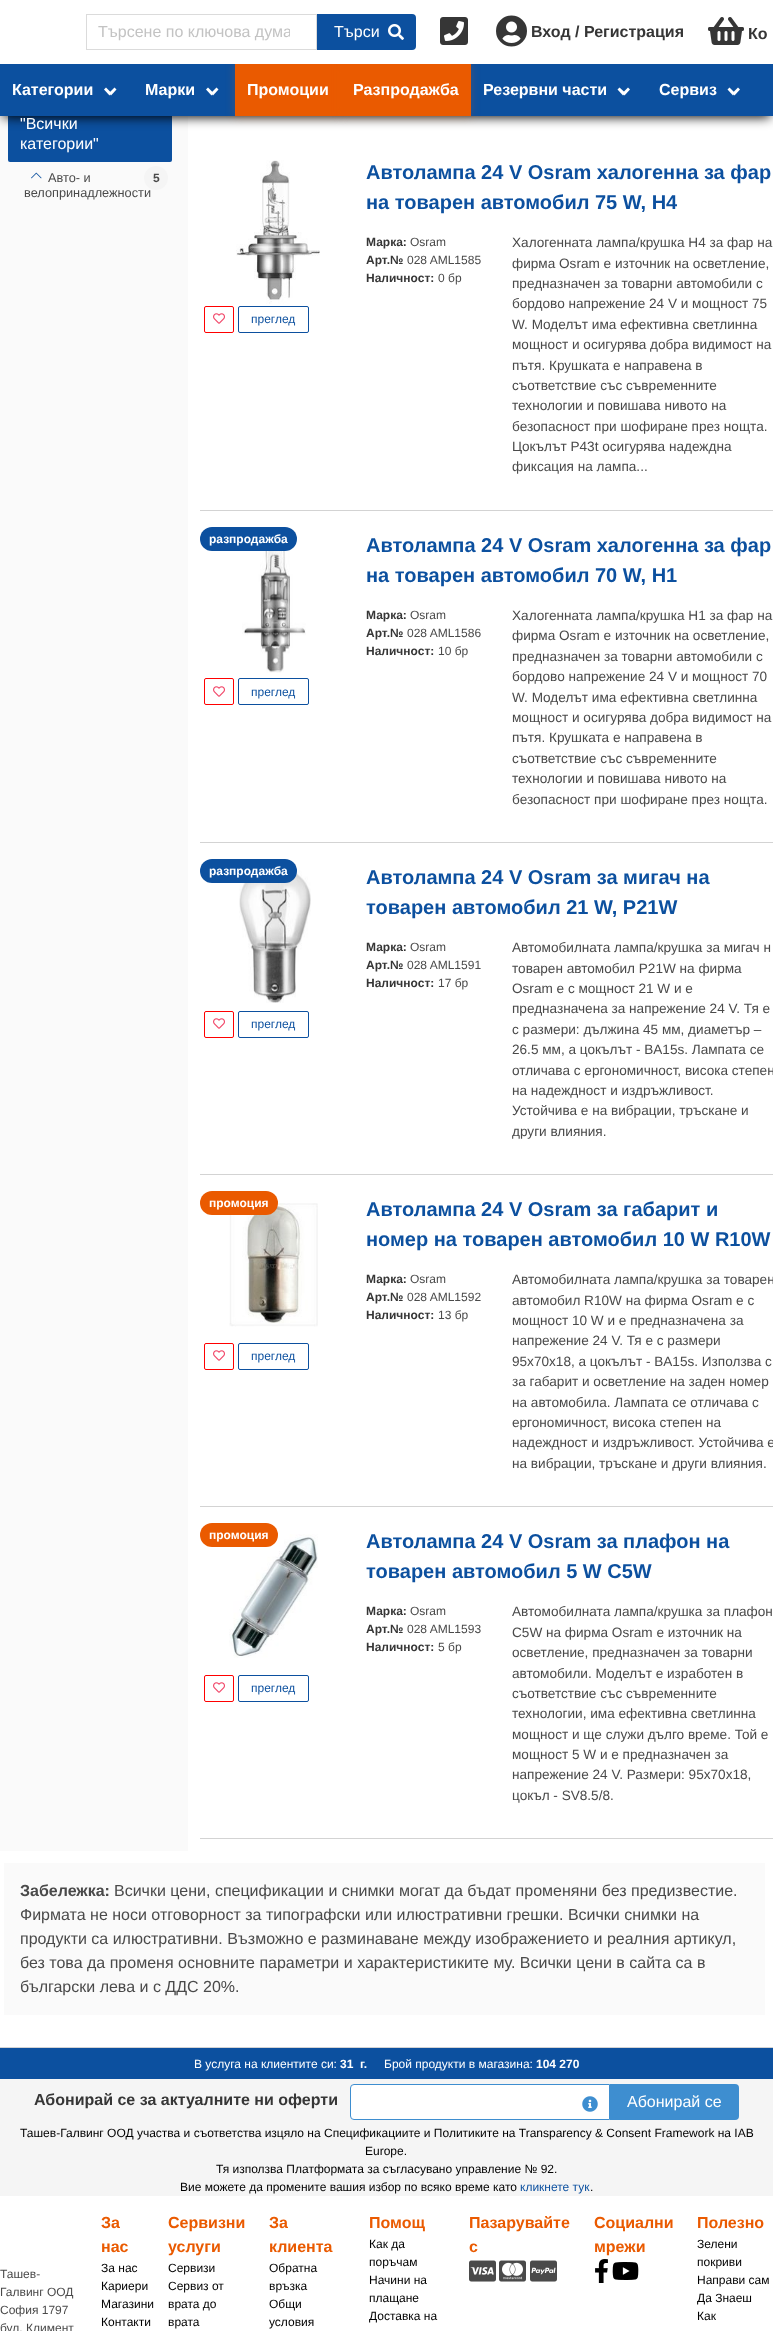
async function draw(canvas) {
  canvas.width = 773;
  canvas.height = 2331;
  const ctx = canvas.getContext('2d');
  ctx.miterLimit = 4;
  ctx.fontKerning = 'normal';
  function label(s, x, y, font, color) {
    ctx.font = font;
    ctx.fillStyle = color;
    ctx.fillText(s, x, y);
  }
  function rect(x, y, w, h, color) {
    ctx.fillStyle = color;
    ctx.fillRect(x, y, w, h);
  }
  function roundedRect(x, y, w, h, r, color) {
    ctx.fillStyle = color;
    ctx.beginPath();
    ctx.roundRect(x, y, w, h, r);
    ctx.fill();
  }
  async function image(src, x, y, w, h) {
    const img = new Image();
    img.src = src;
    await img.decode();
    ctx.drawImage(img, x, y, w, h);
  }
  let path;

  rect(0, 0, 773, 2331, '#fff');
  rect(0, 116, 188, 1735, '#fafafa');
  roundedRect(8, 86, 164, 76, 2, '#0c509f');
  ctx.fillStyle = '#000';
  ctx.filter = 'blur(6px)';
  ctx.beginPath();
  ctx.rect(3, 71, 767, 46);
  ctx.fill();
  ctx.filter = 'none';
  rect(0, 64, 773, 52, '#0c509f');
  ctx.fillStyle = '#ea5a0040';
  ctx.filter = 'blur(5px)';
  ctx.beginPath();
  ctx.rect(235, 64, 106, 52);
  ctx.fill();
  ctx.filter = 'none';
  rect(235, 64, 106, 52, '#ea5a00');
  ctx.fillStyle = '#ea5a0040';
  ctx.filter = 'blur(5px)';
  ctx.beginPath();
  ctx.rect(341, 64, 130, 52);
  ctx.fill();
  ctx.filter = 'none';
  rect(0, 54, 773, 10, '#fff');
  ctx.strokeStyle = '#dbdbdb';
  ctx.strokeRect(86.5, 14.5, 230, 35);
  ctx.save();
  ctx.beginPath();
  ctx.rect(98, 23, 192, 18);
  ctx.clip();
  label('Търсене по ключова дума', 98, 37, '16px Liberation Sans', '#c3c3c3');
  ctx.restore();
  ctx.fillStyle = '#0c509f';
  ctx.beginPath();
  ctx.roundRect(317, 14, 99, 36, [0, 4, 4, 0]);
  ctx.fill();
  label('Търси', 334, 37, '16px Liberation Sans', '#fff');
  await image('assets/img1.png', 388, 24, 16, 16);
  await image('assets/img2.png', 440, 17, 28, 28);
  await image('assets/img3.png', 496, 15, 31, 32);
  label('Вход / Регистрация', 531, 37, 'bold 16px Liberation Sans', '#363636');
  await image('assets/img4.png', 708, 17, 36, 28);
  label('Ко', 748, 39, 'bold 16px Liberation Sans', '#363636');
  label('Категории', 12, 95, 'bold 16px Liberation Sans', '#fff');
  path = new Path2D('M109 93L114.5 87.5L116.5 89.5L111 95.5Z');
  ctx.fill(path);
  path = new Path2D('M104 89.5L106 87.5L111.5 93L109.5 95.5Z');
  ctx.fill(path);
  label('Марки', 145, 95, 'bold 16px Liberation Sans', '#fff');
  path = new Path2D('M211 93L216.5 87.5L218.5 89.5L213 95.5Z');
  ctx.fill(path);
  path = new Path2D('M206 89.5L208 87.5L213.5 93L211.5 95.5Z');
  ctx.fill(path);
  label('Промоции', 247, 95, 'bold 16px Liberation Sans', '#fff');
  rect(341, 64, 130, 52, '#ea5a00');
  label('Разпродажба', 353, 95, 'bold 16px Liberation Sans', '#fff');
  label('Резервни части', 483, 95, 'bold 16px Liberation Sans', '#fff');
  path = new Path2D('M622.5 93L628 87.5L630 89.5L624.5 95.5Z');
  ctx.fill(path);
  path = new Path2D('M617.5 89.5L619.5 87.5L625.5 93L623 95.5Z');
  ctx.fill(path);
  label('Сервиз', 659, 95, 'bold 16px Liberation Sans', '#fff');
  path = new Path2D('M732.5 93L738 87.5L740 89.5L734.5 95.5Z');
  ctx.fill(path);
  path = new Path2D('M727.5 89.5L729.5 87.5L735 93L733 95.5Z');
  ctx.fill(path);
  label('"Всички', 20, 129, '16px Liberation Sans', '#fff');
  label('категории"', 20, 149, '16px Liberation Sans', '#fff');
  await image('assets/img5.png', 31, 172, 11, 7);
  label('Авто- и', 48, 182, '12.75px Liberation Sans', '#4a4a4a');
  ctx.fillStyle = '#f5f5f5';
  ctx.beginPath();
  ctx.arc(156, 178, 12, 0, 2 * Math.PI);
  ctx.fill();
  label('5', 153, 182, 'bold 12px Liberation Sans', '#4a4a4a');
  label('велопринадлежности', 24, 197, '12.75px Liberation Sans', '#4a4a4a');
  rect(200, 510, 573, 1, '#d3d3d3');
  await image('assets/img6.png', 236, 160, 84, 144);
  ctx.beginPath();
  ctx.roundRect(204.5, 306.5, 29, 26, 1.5);
  ctx.strokeStyle = '#f00';
  ctx.stroke();
  await image('assets/img7.png', 213, 313, 12, 11);
  ctx.beginPath();
  ctx.roundRect(238.5, 306.5, 70, 26, 1.5);
  ctx.strokeStyle = '#0c509f';
  ctx.stroke();
  label('преглед', 251, 323, '12px Liberation Sans', '#0c509f');
  label('Автолампа 24 V Osram халогенна за фар', 366, 179, 'bold 20px Liberation Sans', '#0c509f');
  label('на товарен автомобил 75 W, H4', 366, 209, 'bold 20px Liberation Sans', '#0c509f');
  label('Марка:', 366, 246, 'bold 12px Liberation Sans', '#363636');
  label('Osram', 410, 246, '12px Liberation Sans', '#4a4a4a');
  label('Арт.№', 366, 264, 'bold 12px Liberation Sans', '#363636');
  label('028 AML1585', 407, 264, '12px Liberation Sans', '#4a4a4a');
  label('Наличност:', 366, 282, 'bold 12px Liberation Sans', '#363636');
  label('0 бр', 438, 282, '12px Liberation Sans', '#4a4a4a');
  label('Халогенната лампа/крушка H4 за фар на', 512, 247, '13.6px Liberation Sans', '#4a4a4a');
  label('фирма Osram е източник на осветление,', 512, 268, '13.6px Liberation Sans', '#4a4a4a');
  label('предназначен за товарни автомобили с', 512, 288, '13.6px Liberation Sans', '#4a4a4a');
  label('бордово напрежение 24 V и мощност 75', 512, 308, '13.6px Liberation Sans', '#4a4a4a');
  label('W. Моделът има ефективна светлинна', 512, 329, '13.6px Liberation Sans', '#4a4a4a');
  label('мощност и осигурява добра видимост на', 512, 349, '13.6px Liberation Sans', '#4a4a4a');
  label('пътя. Крушката е направена в', 512, 370, '13.6px Liberation Sans', '#4a4a4a');
  label('съответствие със съвременните', 512, 390, '13.6px Liberation Sans', '#4a4a4a');
  label('технологии и повишава нивото на', 512, 410, '13.6px Liberation Sans', '#4a4a4a');
  label('безопасност при шофиране през нощта.', 512, 431, '13.6px Liberation Sans', '#4a4a4a');
  label('Цокълът P43t осигурява надеждна', 512, 451, '13.6px Liberation Sans', '#4a4a4a');
  label('фиксация на лампа...', 512, 471, '13.6px Liberation Sans', '#4a4a4a');
  rect(200, 842, 573, 1, '#d3d3d3');
  await image('assets/img8.png', 242, 533, 64, 140);
  roundedRect(200, 527, 97, 24, 12, '#0c509f');
  label('разпродажба', 209, 543, 'bold 12px Liberation Sans', '#fff');
  ctx.beginPath();
  ctx.roundRect(204.5, 678.5, 29, 26, 1.5);
  ctx.strokeStyle = '#f00';
  ctx.stroke();
  await image('assets/img7.png', 213, 686, 12, 11);
  ctx.beginPath();
  ctx.roundRect(238.5, 678.5, 70, 26, 1.5);
  ctx.strokeStyle = '#0c509f';
  ctx.stroke();
  label('преглед', 251, 696, '12px Liberation Sans', '#0c509f');
  label('Автолампа 24 V Osram халогенна за фар', 366, 552, 'bold 20px Liberation Sans', '#0c509f');
  label('на товарен автомобил 70 W, H1', 366, 582, 'bold 20px Liberation Sans', '#0c509f');
  label('Марка:', 366, 619, 'bold 12px Liberation Sans', '#363636');
  label('Osram', 410, 619, '12px Liberation Sans', '#4a4a4a');
  label('Арт.№', 366, 637, 'bold 12px Liberation Sans', '#363636');
  label('028 AML1586', 407, 637, '12px Liberation Sans', '#4a4a4a');
  label('Наличност:', 366, 655, 'bold 12px Liberation Sans', '#363636');
  label('10 бр', 438, 655, '12px Liberation Sans', '#4a4a4a');
  label('Халогенната лампа/крушка H1 за фар на', 512, 620, '13.6px Liberation Sans', '#4a4a4a');
  label('фирма Osram е източник на осветление,', 512, 640, '13.6px Liberation Sans', '#4a4a4a');
  label('предназначен за товарни автомобили с', 512, 661, '13.6px Liberation Sans', '#4a4a4a');
  label('бордово напрежение 24 V и мощност 70', 512, 681, '13.6px Liberation Sans', '#4a4a4a');
  label('W. Моделът има ефективна светлинна', 512, 702, '13.6px Liberation Sans', '#4a4a4a');
  label('мощност и осигурява добра видимост на', 512, 722, '13.6px Liberation Sans', '#4a4a4a');
  label('пътя. Крушката е направена в', 512, 742, '13.6px Liberation Sans', '#4a4a4a');
  label('съответствие със съвременните', 512, 763, '13.6px Liberation Sans', '#4a4a4a');
  label('технологии и повишава нивото на', 512, 783, '13.6px Liberation Sans', '#4a4a4a');
  label('безопасност при шофиране през нощта.', 512, 804, '13.6px Liberation Sans', '#4a4a4a');
  rect(200, 1174, 573, 1, '#d3d3d3');
  await image('assets/img9.png', 239, 865, 72, 138);
  roundedRect(200, 859, 97, 24, 12, '#0c509f');
  label('разпродажба', 209, 875, 'bold 12px Liberation Sans', '#fff');
  ctx.beginPath();
  ctx.roundRect(204.5, 1011.5, 29, 26, 1.5);
  ctx.strokeStyle = '#f00';
  ctx.stroke();
  await image('assets/img7.png', 213, 1018, 12, 11);
  ctx.beginPath();
  ctx.roundRect(238.5, 1011.5, 70, 26, 1.5);
  ctx.strokeStyle = '#0c509f';
  ctx.stroke();
  label('преглед', 251, 1028, '12px Liberation Sans', '#0c509f');
  label('Автолампа 24 V Osram за мигач на', 366, 884, 'bold 20px Liberation Sans', '#0c509f');
  label('товарен автомобил 21 W, P21W', 366, 914, 'bold 20px Liberation Sans', '#0c509f');
  label('Марка:', 366, 951, 'bold 12px Liberation Sans', '#363636');
  label('Osram', 410, 951, '12px Liberation Sans', '#4a4a4a');
  label('Арт.№', 366, 969, 'bold 12px Liberation Sans', '#363636');
  label('028 AML1591', 407, 969, '12px Liberation Sans', '#4a4a4a');
  label('Наличност:', 366, 987, 'bold 12px Liberation Sans', '#363636');
  label('17 бр', 438, 987, '12px Liberation Sans', '#4a4a4a');
  label('Автомобилната лампа/крушка за мигач н', 512, 952, '13.6px Liberation Sans', '#4a4a4a');
  label('товарен автомобил P21W на фирма', 512, 973, '13.6px Liberation Sans', '#4a4a4a');
  label('Osram е с мощност 21 W и е', 512, 993, '13.6px Liberation Sans', '#4a4a4a');
  label('предназначена за напрежение 24 V. Тя е', 512, 1013, '13.6px Liberation Sans', '#4a4a4a');
  label('с размери: дължина 45 мм, диаметър –', 512, 1034, '13.6px Liberation Sans', '#4a4a4a');
  label('26.5 мм, а цокълът - BA15s. Лампата се', 512, 1054, '13.6px Liberation Sans', '#4a4a4a');
  label('отличава с ергономичност, висока степен', 512, 1075, '13.6px Liberation Sans', '#4a4a4a');
  label('на надеждност и издръжливост.', 512, 1095, '13.6px Liberation Sans', '#4a4a4a');
  label('Устойчива е на вибрации, тръскане и', 512, 1115, '13.6px Liberation Sans', '#4a4a4a');
  label('други влияния.', 512, 1136, '13.6px Liberation Sans', '#4a4a4a');
  rect(200, 1506, 573, 1, '#d3d3d3');
  await image('assets/img10.png', 229, 1203, 89, 124);
  roundedRect(200, 1191, 78, 24, 12, '#ea5a00');
  label('промоция', 209, 1207, 'bold 12px Liberation Sans', '#fff');
  ctx.beginPath();
  ctx.roundRect(204.5, 1343.5, 29, 26, 1.5);
  ctx.strokeStyle = '#f00';
  ctx.stroke();
  await image('assets/img7.png', 213, 1350, 12, 11);
  ctx.beginPath();
  ctx.roundRect(238.5, 1343.5, 70, 26, 1.5);
  ctx.strokeStyle = '#0c509f';
  ctx.stroke();
  label('преглед', 251, 1360, '12px Liberation Sans', '#0c509f');
  label('Автолампа 24 V Osram за габарит и', 366, 1216, 'bold 20px Liberation Sans', '#0c509f');
  label('номер на товарен автомобил 10 W R10W', 366, 1246, 'bold 20px Liberation Sans', '#0c509f');
  label('Марка:', 366, 1283, 'bold 12px Liberation Sans', '#363636');
  label('Osram', 410, 1283, '12px Liberation Sans', '#4a4a4a');
  label('Арт.№', 366, 1301, 'bold 12px Liberation Sans', '#363636');
  label('028 AML1592', 407, 1301, '12px Liberation Sans', '#4a4a4a');
  label('Наличност:', 366, 1319, 'bold 12px Liberation Sans', '#363636');
  label('13 бр', 438, 1319, '12px Liberation Sans', '#4a4a4a');
  label('Автомобилната лампа/крушка за товарен', 512, 1284, '13.6px Liberation Sans', '#4a4a4a');
  label('автомобил R10W на фирма Osram е с', 512, 1305, '13.6px Liberation Sans', '#4a4a4a');
  label('мощност 10 W и е предназначена за', 512, 1325, '13.6px Liberation Sans', '#4a4a4a');
  label('напрежение 24 V. Тя е с размери', 512, 1345, '13.6px Liberation Sans', '#4a4a4a');
  label('95х70х18, а цокълът - BA15s. Използва с', 512, 1366, '13.6px Liberation Sans', '#4a4a4a');
  label('за габарит и осветление на заден номер', 512, 1386, '13.6px Liberation Sans', '#4a4a4a');
  label('на автомобила. Лампата се отличава с', 512, 1407, '13.6px Liberation Sans', '#4a4a4a');
  label('ергономичност, висока степен на', 512, 1427, '13.6px Liberation Sans', '#4a4a4a');
  label('надеждност и издръжливост. Устойчива е', 512, 1447, '13.6px Liberation Sans', '#4a4a4a');
  label('на вибрации, тръскане и други влияния.', 512, 1468, '13.6px Liberation Sans', '#4a4a4a');
  rect(200, 1838, 573, 1, '#d3d3d3');
  await image('assets/img11.png', 229, 1534, 89, 124);
  roundedRect(200, 1523, 78, 24, 12, '#ea5a00');
  label('промоция', 209, 1539, 'bold 12px Liberation Sans', '#fff');
  ctx.beginPath();
  ctx.roundRect(204.5, 1675.5, 29, 26, 1.5);
  ctx.strokeStyle = '#f00';
  ctx.stroke();
  await image('assets/img7.png', 213, 1682, 12, 11);
  ctx.beginPath();
  ctx.roundRect(238.5, 1675.5, 70, 26, 1.5);
  ctx.strokeStyle = '#0c509f';
  ctx.stroke();
  label('преглед', 251, 1692, '12px Liberation Sans', '#0c509f');
  label('Автолампа 24 V Osram за плафон на', 366, 1548, 'bold 20px Liberation Sans', '#0c509f');
  label('товарен автомобил 5 W C5W', 366, 1578, 'bold 20px Liberation Sans', '#0c509f');
  label('Марка:', 366, 1615, 'bold 12px Liberation Sans', '#363636');
  label('Osram', 410, 1615, '12px Liberation Sans', '#4a4a4a');
  label('Арт.№', 366, 1633, 'bold 12px Liberation Sans', '#363636');
  label('028 AML1593', 407, 1633, '12px Liberation Sans', '#4a4a4a');
  label('Наличност:', 366, 1651, 'bold 12px Liberation Sans', '#363636');
  label('5 бр', 438, 1651, '12px Liberation Sans', '#4a4a4a');
  label('Автомобилната лампа/крушка за плафон', 512, 1616, '13.6px Liberation Sans', '#4a4a4a');
  label('C5W на фирма Osram е източник на', 512, 1637, '13.6px Liberation Sans', '#4a4a4a');
  label('осветление, предназначен за товарни', 512, 1657, '13.6px Liberation Sans', '#4a4a4a');
  label('автомобили. Моделът е изработен в', 512, 1678, '13.6px Liberation Sans', '#4a4a4a');
  label('съответствие със съвременните', 512, 1698, '13.6px Liberation Sans', '#4a4a4a');
  label('технологии, има ефективна светлинна', 512, 1718, '13.6px Liberation Sans', '#4a4a4a');
  label('мощност и ще служи дълго време. Той е', 512, 1739, '13.6px Liberation Sans', '#4a4a4a');
  label('мощност 5 W и е предназначен за', 512, 1759, '13.6px Liberation Sans', '#4a4a4a');
  label('напрежение 24 V. Размери: 95х70х18,', 512, 1779, '13.6px Liberation Sans', '#4a4a4a');
  label('цокъл - SV8.5/8.', 512, 1800, '13.6px Liberation Sans', '#4a4a4a');
  rect(4, 1863, 761, 152, '#fafafa');
  label('Забележка:', 20, 1896, 'bold 16px Liberation Sans', '#4a4a4a');
  label('Всички цени, спецификации и снимки могат да бъдат променяни без предизвестие.', 114, 1896, '16px Liberation Sans', '#4a4a4a');
  label('Фирмата не носи отговорност за типографски или илюстративни грешки. Всички снимки на', 20, 1920, '16px Liberation Sans', '#4a4a4a');
  label('продукти са илюстративни. Възможно е разминаване между изображението и реалния артикул,', 20, 1944, '16px Liberation Sans', '#4a4a4a');
  label('без това да променя основните параметри и характеристиките му. Всички цени в сайта са в', 20, 1968, '16px Liberation Sans', '#4a4a4a');
  label('български лева и с ДДС 20%.', 20, 1992, '16px Liberation Sans', '#4a4a4a');
  rect(0, 2048, 773, 31, '#0c509f');
  rect(0, 2047, 773, 1, '#d3d3d3');
  label('В услуга на клиентите си:', 194, 2068, '12px Liberation Sans', '#fff');
  label('31', 340, 2068, 'bold 12px Liberation Sans', '#fff');
  label('г.', 360, 2068, 'bold 12px Liberation Sans', '#fff');
  label('Брой продукти в магазина:', 384, 2068, '12px Liberation Sans', '#fff');
  label('104 270', 536, 2068, 'bold 12px Liberation Sans', '#fff');
  rect(0, 2079, 773, 117, '#f5f5f5');
  label('Абонирай се за актуалните ни оферти', 34, 2105, 'bold 16px Liberation Sans', '#363636');
  ctx.fillStyle = '#fff';
  ctx.beginPath();
  ctx.roundRect(350.5, 2084.5, 259, 35, [3.5, 0, 0, 3.5]);
  ctx.fill();
  ctx.strokeStyle = '#3e8ed0';
  ctx.stroke();
  await image('assets/img12.png', 582, 2096, 16, 16);
  ctx.fillStyle = '#3e8ed0';
  ctx.beginPath();
  ctx.roundRect(610, 2084, 129, 36, [0, 4, 4, 0]);
  ctx.fill();
  label('Абонирай се', 627, 2107, '16px Liberation Sans', '#fff');
  label('Ташев-Галвинг ООД участва и съответства изцяло на Спецификациите и Политиките на Transparency & Consent Framework на IAB', 20, 2137, '12px Liberation Sans', '#000');
  label('Europe.', 365, 2155, '12px Liberation Sans', '#000');
  label('Тя използва Платформата за съгласувано управление № 92.', 216, 2173, '12px Liberation Sans', '#000');
  label('Вие можете да промените вашия избор по всяко време като', 180, 2191, '12px Liberation Sans', '#000');
  label('кликнете тук', 520, 2191, '12px Liberation Sans', '#0c509f');
  label('.', 590, 2191, '12px Liberation Sans', '#000');
  label('Ташев-', 0, 2278, '12px Liberation Sans', '#4a4a4a');
  label('Галвинг ООД', 0, 2296, '12px Liberation Sans', '#4a4a4a');
  label('София 1797', 0, 2314, '12px Liberation Sans', '#4a4a4a');
  label('бул. Климент', 0, 2332, '12px Liberation Sans', '#4a4a4a');
  label('За', 101, 2228, 'bold 16px Liberation Sans', '#ea5a00');
  label('нас', 101, 2252, 'bold 16px Liberation Sans', '#ea5a00');
  label('За нас', 101, 2272, '12px Liberation Sans', '#000');
  label('Кариери', 101, 2290, '12px Liberation Sans', '#000');
  label('Магазини', 101, 2308, '12px Liberation Sans', '#000');
  label('Контакти', 101, 2326, '12px Liberation Sans', '#000');
  label('Сервизни', 168, 2228, 'bold 16px Liberation Sans', '#ea5a00');
  label('услуги', 168, 2252, 'bold 16px Liberation Sans', '#ea5a00');
  label('Сервизи', 168, 2272, '12px Liberation Sans', '#000');
  label('Сервиз от', 168, 2290, '12px Liberation Sans', '#000');
  label('врата до', 168, 2308, '12px Liberation Sans', '#000');
  label('врата', 168, 2326, '12px Liberation Sans', '#000');
  label('За', 269, 2228, 'bold 16px Liberation Sans', '#ea5a00');
  label('клиента', 269, 2252, 'bold 16px Liberation Sans', '#ea5a00');
  label('Oбратна', 269, 2272, '12px Liberation Sans', '#000');
  label('връзка', 269, 2290, '12px Liberation Sans', '#000');
  label('Общи', 269, 2308, '12px Liberation Sans', '#000');
  label('условия', 269, 2326, '12px Liberation Sans', '#000');
  label('Помощ', 369, 2228, 'bold 16px Liberation Sans', '#ea5a00');
  label('Как да', 369, 2248, '12px Liberation Sans', '#000');
  label('поръчам', 369, 2266, '12px Liberation Sans', '#000');
  label('Начини на', 369, 2284, '12px Liberation Sans', '#000');
  label('плащане', 369, 2302, '12px Liberation Sans', '#000');
  label('Доставка на', 369, 2320, '12px Liberation Sans', '#000');
  label('Пазарувайте', 469, 2228, 'bold 16px Liberation Sans', '#ea5a00');
  label('с', 469, 2252, 'bold 16px Liberation Sans', '#ea5a00');
  await image('assets/img13.png', 469, 2260, 27, 22);
  await image('assets/img14.png', 499, 2260, 27, 22);
  await image('assets/img15.png', 530, 2260, 27, 22);
  label('Социални', 594, 2228, 'bold 16px Liberation Sans', '#ea5a00');
  label('мрежи', 594, 2252, 'bold 16px Liberation Sans', '#ea5a00');
  await image('assets/img16.png', 595, 2259, 13, 24);
  await image('assets/img17.png', 612, 2262, 27, 18);
  label('Полезно', 697, 2228, 'bold 16px Liberation Sans', '#ea5a00');
  label('Зелени', 697, 2248, '12px Liberation Sans', '#000');
  label('покриви', 697, 2266, '12px Liberation Sans', '#000');
  label('Направи сам', 697, 2284, '12px Liberation Sans', '#000');
  label('Да Знаеш', 697, 2302, '12px Liberation Sans', '#000');
  label('Как', 697, 2320, '12px Liberation Sans', '#000');
}

draw(document.querySelector('canvas'));
